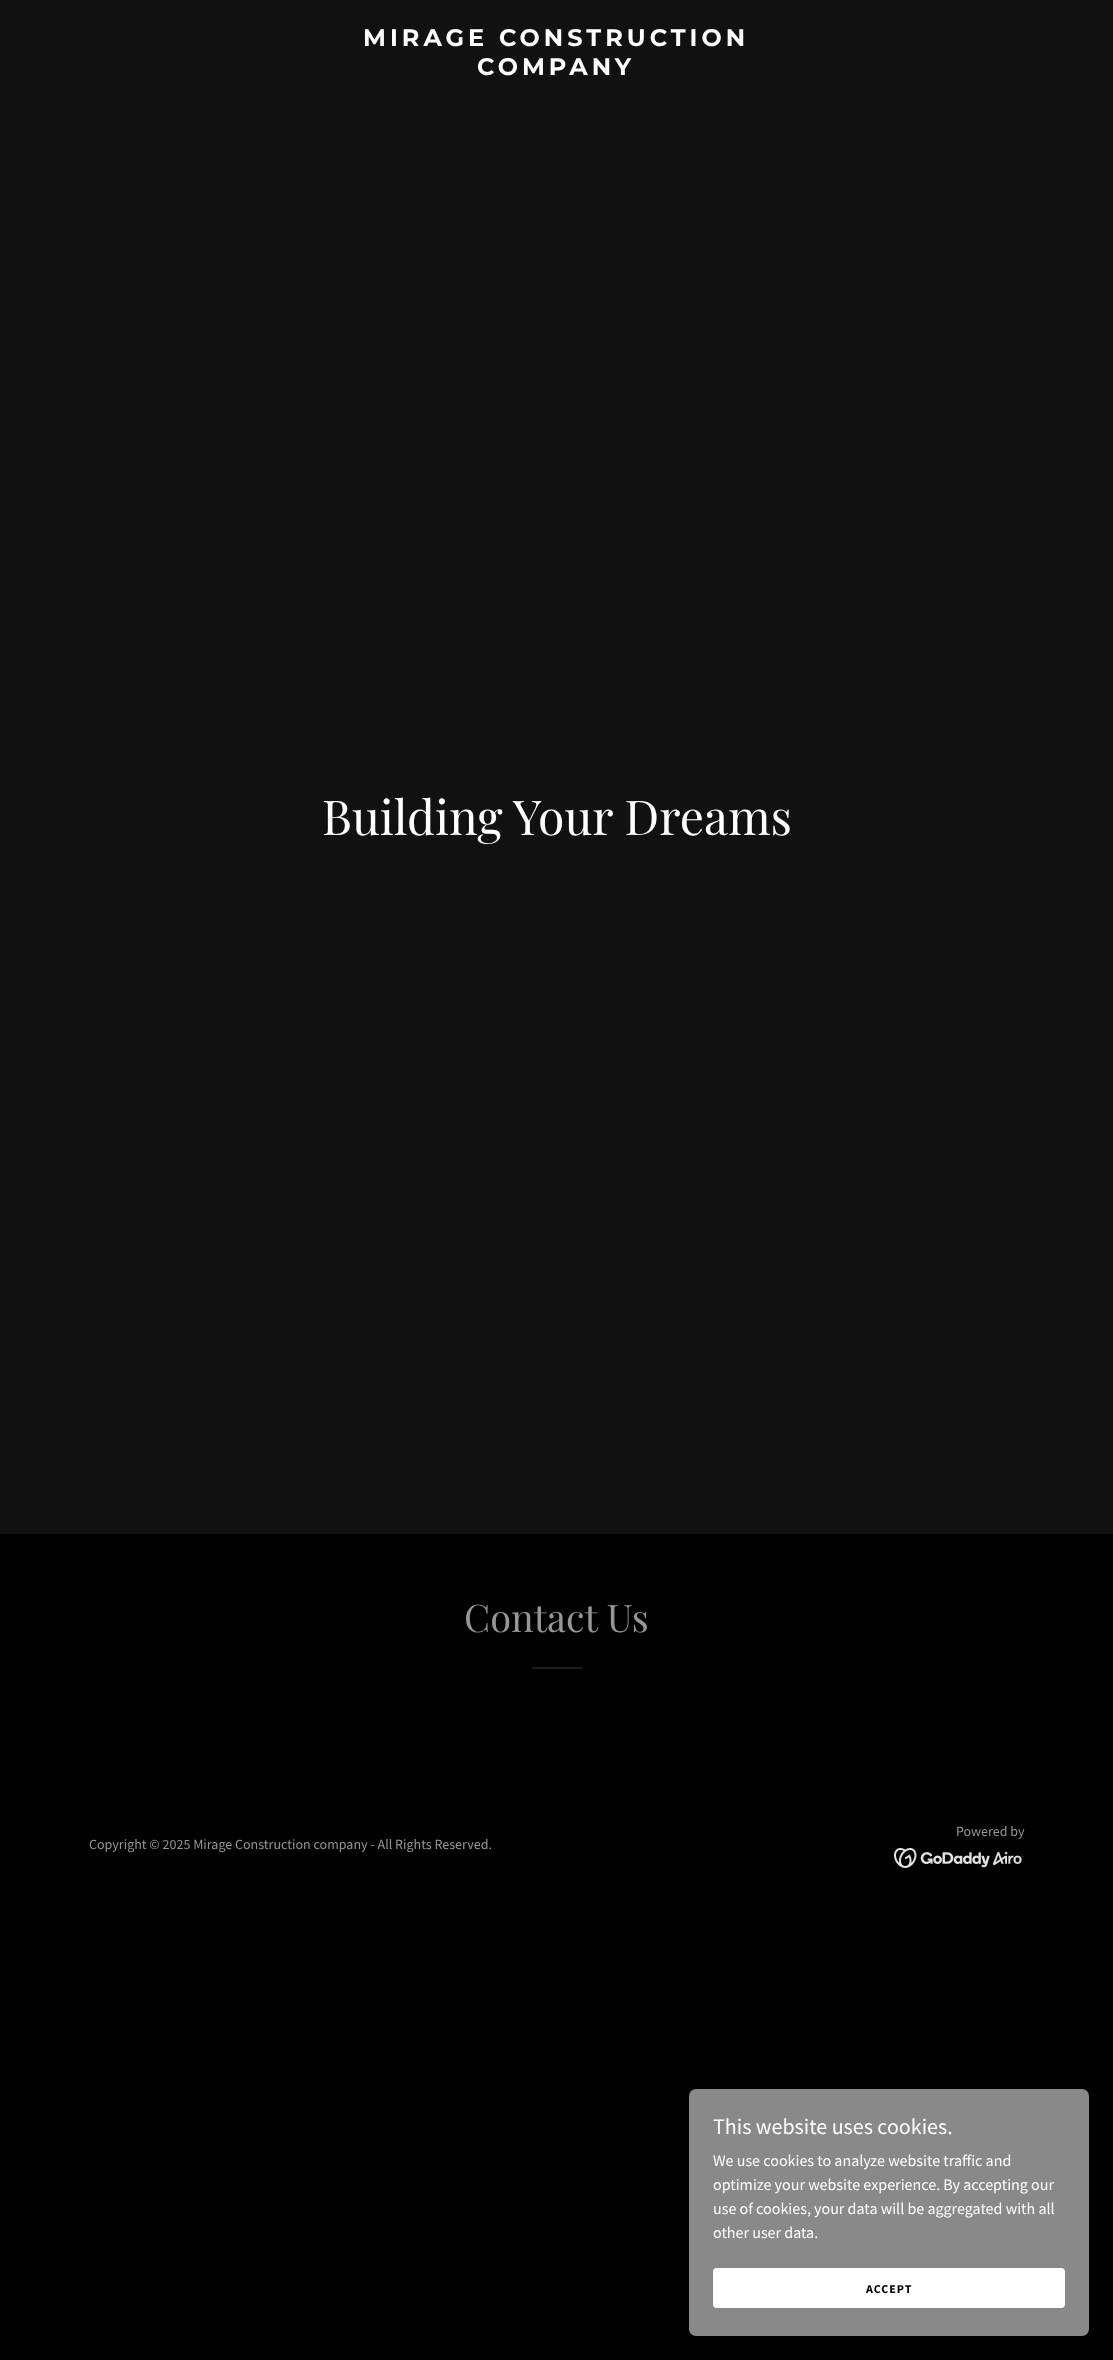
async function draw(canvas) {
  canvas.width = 1113;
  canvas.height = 2360;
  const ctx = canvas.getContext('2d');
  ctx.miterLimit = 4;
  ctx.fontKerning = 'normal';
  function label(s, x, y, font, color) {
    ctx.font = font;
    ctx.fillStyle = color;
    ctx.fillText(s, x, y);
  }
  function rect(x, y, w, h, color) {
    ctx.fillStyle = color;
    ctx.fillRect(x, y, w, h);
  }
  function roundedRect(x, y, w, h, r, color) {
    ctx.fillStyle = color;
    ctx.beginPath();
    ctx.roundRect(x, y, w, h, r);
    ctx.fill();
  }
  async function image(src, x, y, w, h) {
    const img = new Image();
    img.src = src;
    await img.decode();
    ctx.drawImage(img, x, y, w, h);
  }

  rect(0, 0, 1113, 2360, '#000');
  rect(0, 0, 1113, 1534, '#111');
  ctx.letterSpacing = '4px';
  label('MIRAGE CONSTRUCTION', 363, 46, 'bold 24px Montserrat', '#fff');
  label('COMPANY', 477, 75, 'bold 24px Montserrat', '#fff');
  ctx.letterSpacing = '0px';
  label('Building Your Dreams', 322, 835, '48px Playfair Display', '#fff');
  label('Contact Us', 464, 1632, '38px Playfair Display', '#969696');
  rect(532, 1667, 50, 2, '#1b1b1b');
  label('Powered by', 956, 1836, '14px Source Sans Pro', '#969696');
  await image('assets/img1.png', 894, 1848, 130, 20);
  label('Copyright © 2025 Mirage Construction company - All Rights Reserved.', 89, 1849, '14px Source Sans Pro', '#969696');
  roundedRect(689, 2089, 400, 247, 7, '#898989');
  label('This website uses cookies.', 713, 2134, '22px Source Sans Pro', '#fff');
  label('We use cookies to analyze website traffic and', 713, 2166, '16px Source Sans Pro', '#fff');
  label('optimize your website experience. By accepting our', 713, 2190, '16px Source Sans Pro', '#fff');
  label('use of cookies, your data will be aggregated with all', 713, 2214, '16px Source Sans Pro', '#fff');
  label('other user data.', 713, 2238, '16px Source Sans Pro', '#fff');
  roundedRect(713, 2268, 352, 40, 4, '#fff');
  ctx.letterSpacing = '1px';
  label('ACCEPT', 866, 2293, 'bold 12px Source Sans Pro', '#000');
}

draw(document.querySelector('canvas'));
